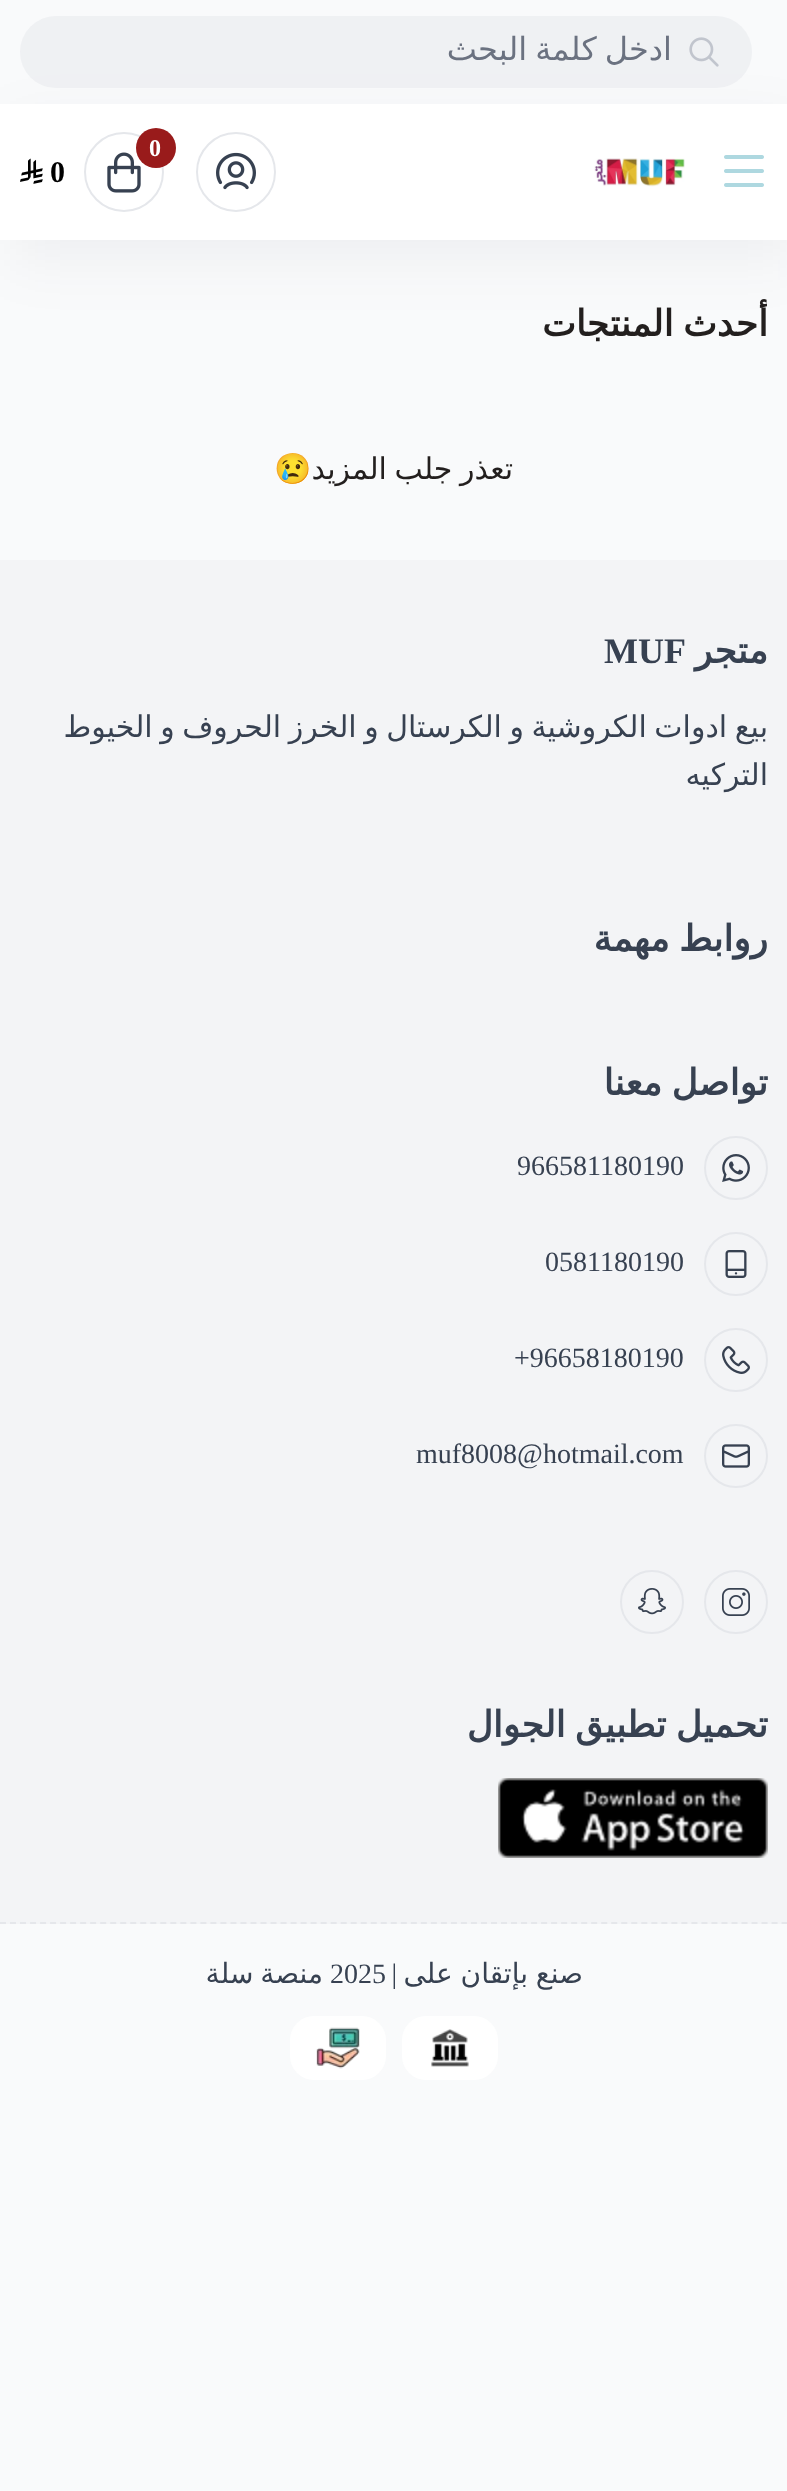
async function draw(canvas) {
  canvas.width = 787;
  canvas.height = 2491;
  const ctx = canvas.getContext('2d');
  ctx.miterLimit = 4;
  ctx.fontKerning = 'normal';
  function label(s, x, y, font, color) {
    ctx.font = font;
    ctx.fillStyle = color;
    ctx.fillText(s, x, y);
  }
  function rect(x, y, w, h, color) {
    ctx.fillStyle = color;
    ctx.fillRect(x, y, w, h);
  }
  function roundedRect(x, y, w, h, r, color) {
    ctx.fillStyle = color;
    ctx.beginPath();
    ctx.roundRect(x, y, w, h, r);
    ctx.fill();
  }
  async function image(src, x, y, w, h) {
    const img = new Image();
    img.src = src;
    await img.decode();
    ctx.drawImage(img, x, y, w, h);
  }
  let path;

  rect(0, 0, 787, 2491, '#f9fafb');
  ctx.fillStyle = '#2b2d340d';
  ctx.filter = 'blur(30px)';
  ctx.beginPath();
  ctx.rect(10, 124, 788, 136);
  ctx.fill();
  ctx.filter = 'none';
  await image('assets/img1.png', 689, 37, 30, 30);
  roundedRect(20, 16, 732, 72, 36, '#e5e7eb80');
  ctx.save();
  ctx.beginPath();
  ctx.rect(74, 30, 598, 38);
  ctx.clip();
  ctx.wordSpacing = '-2px';
  ctx.direction = 'rtl';
  label('ادخل كلمة البحث', 672, 60, '32px DejaVu Sans', '#6b7280');
  ctx.restore();
  rect(0, 104, 787, 136, '#fff');
  await image('assets/img2.png', 724, 155, 40, 32);
  await image('assets/img3.png', 594, 158, 91, 29);
  ctx.beginPath();
  ctx.arc(236, 172, 39, 0, 2 * Math.PI);
  ctx.strokeStyle = '#e5e7eb';
  ctx.lineWidth = 2;
  ctx.stroke();
  await image('assets/img4.png', 216, 152, 40, 38);
  ctx.beginPath();
  ctx.arc(124, 172, 39, 0, 2 * Math.PI);
  ctx.stroke();
  await image('assets/img5.png', 107, 152, 34, 41);
  ctx.fillStyle = '#991b1b';
  ctx.beginPath();
  ctx.arc(156, 148, 20, 0, 2 * Math.PI);
  ctx.fill();
  label('0', 149, 156, 'bold 24px Liberation Serif', '#fff');
  label('0', 50, 182, 'bold 30px Liberation Serif', '#000');
  await image('assets/img6.png', 20, 158, 23, 26);
  ctx.wordSpacing = '-2px';
  ctx.direction = 'rtl';
  label('أحدث المنتجات', 768, 336, 'bold 36px DejaVu Sans', '#231f1e');
  label('تعذر جلب المزيد', 513, 479, '30px DejaVu Sans', '#231f1e');
  ctx.wordSpacing = '0px';
  label('😢', 312, 479, '30px Noto Color Emoji', '#231f1e');
  rect(0, 560, 787, 1364, '#f3f4f6');
  path = new Path2D('M0 1923H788');
  ctx.setLineDash([6, 4.02]);
  ctx.stroke(path);
  label('متجر', 768, 663, 'bold 36px DejaVu Sans', '#374151');
  ctx.direction = 'ltr';
  label('MUF', 604, 663, 'bold 36px Liberation Serif', '#374151');
  ctx.wordSpacing = '-2px';
  ctx.direction = 'rtl';
  label('بيع ادوات الكروشية و الكرستال و الخرز الحروف و الخيوط', 768, 737, '30px DejaVu Sans', '#374151');
  ctx.wordSpacing = '0px';
  label('التركيه', 768, 785, '30px DejaVu Sans', '#374151');
  ctx.wordSpacing = '-2px';
  label('روابط مهمة', 768, 951, 'bold 36px DejaVu Sans', '#374151');
  label('تواصل معنا', 768, 1095, 'bold 36px DejaVu Sans', '#374151');
  ctx.beginPath();
  ctx.arc(736, 1168, 31, 0, 2 * Math.PI);
  ctx.setLineDash([]);
  ctx.stroke();
  await image('assets/img7.png', 722, 1154, 28, 28);
  ctx.wordSpacing = '0px';
  ctx.direction = 'ltr';
  label('966581180190', 517, 1175, '28px Liberation Serif', '#374151');
  ctx.beginPath();
  ctx.arc(736, 1264, 31, 0, 2 * Math.PI);
  ctx.stroke();
  await image('assets/img8.png', 725, 1250, 22, 28);
  label('0581180190', 545, 1271, '28px Liberation Serif', '#374151');
  ctx.beginPath();
  ctx.arc(736, 1360, 31, 0, 2 * Math.PI);
  ctx.stroke();
  await image('assets/img9.png', 722, 1346, 28, 28);
  label('+96658180190', 514, 1367, '28px Liberation Serif', '#374151');
  ctx.beginPath();
  ctx.arc(736, 1456, 31, 0, 2 * Math.PI);
  ctx.stroke();
  await image('assets/img10.png', 722, 1444, 28, 24);
  label('muf8008@hotmail.com', 416, 1463, '28px Liberation Serif', '#374151');
  ctx.beginPath();
  ctx.arc(736, 1602, 31, 0, 2 * Math.PI);
  ctx.stroke();
  await image('assets/img11.png', 722, 1588, 28, 28);
  ctx.beginPath();
  ctx.arc(652, 1602, 31, 0, 2 * Math.PI);
  ctx.stroke();
  await image('assets/img12.png', 638, 1588, 28, 27);
  ctx.wordSpacing = '-2px';
  ctx.direction = 'rtl';
  label('تحميل تطبيق الجوال', 768, 1737, 'bold 36px DejaVu Sans', '#374151');
  await image('assets/img13.png', 498, 1778, 270, 80);
  ctx.wordSpacing = '-1px';
  label('صنع بإتقان على', 583, 1983, '28px DejaVu Sans', '#374151');
  ctx.wordSpacing = '0px';
  label('|', 397, 1983, '28px Liberation Serif', '#374151');
  ctx.direction = 'ltr';
  label('2025', 330, 1983, '28px Liberation Serif', '#374151');
  ctx.wordSpacing = '-2px';
  ctx.direction = 'rtl';
  label('منصة سلة', 323, 1983, '28px DejaVu Sans', '#374151');
  roundedRect(402, 2016, 96, 64, 24, '#fff');
  await image('assets/img14.png', 431, 2029, 38, 38);
  roundedRect(290, 2016, 96, 64, 24, '#fff');
  await image('assets/img15.png', 316, 2027, 44, 42);
}

draw(document.querySelector('canvas'));
